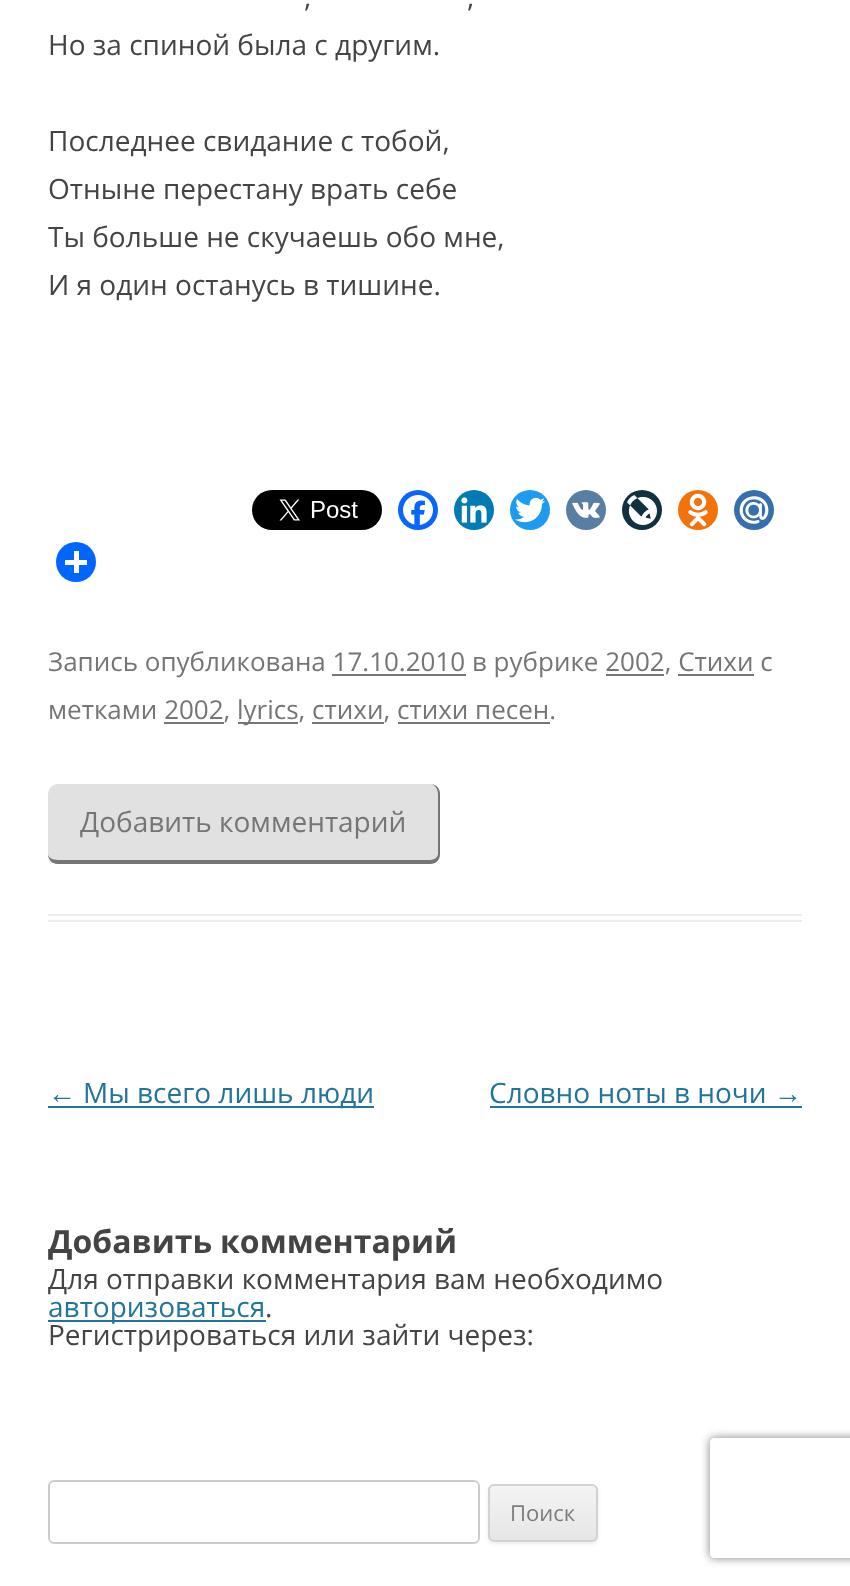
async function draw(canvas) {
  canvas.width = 850;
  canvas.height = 1586;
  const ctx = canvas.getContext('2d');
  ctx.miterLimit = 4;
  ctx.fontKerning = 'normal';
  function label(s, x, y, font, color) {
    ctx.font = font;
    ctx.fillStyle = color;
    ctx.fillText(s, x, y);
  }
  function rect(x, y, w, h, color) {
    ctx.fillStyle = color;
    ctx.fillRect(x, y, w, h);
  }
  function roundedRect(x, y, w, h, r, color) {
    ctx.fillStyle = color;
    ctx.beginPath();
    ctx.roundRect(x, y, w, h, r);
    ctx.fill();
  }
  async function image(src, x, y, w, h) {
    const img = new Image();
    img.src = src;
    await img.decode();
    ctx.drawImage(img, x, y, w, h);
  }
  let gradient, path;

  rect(0, 0, 850, 1586, '#fff');
  rect(48, 914, 754, 2, '#ededed');
  rect(48, 920, 754, 2, '#ededed');
  label(',', 304, 7, '28px Open Sans', '#444');
  label(',', 467, 7, '28px Open Sans', '#444');
  label('Но за спиной была с другим.', 48, 55, '28px Open Sans', '#444');
  label('Последнее свидание с тобой,', 48, 151, '28px Open Sans', '#444');
  label('Отныне перестану врать себе', 48, 199, '28px Open Sans', '#444');
  label('Ты больше не скучаешь обо мне,', 48, 247, '28px Open Sans', '#444');
  label('И я один останусь в тишине.', 48, 295, '28px Open Sans', '#444');
  await image('assets/img1.png', 252, 490, 130, 40);
  ctx.fillStyle = '#0866ff';
  ctx.beginPath();
  ctx.arc(418, 510, 20, 0, 2 * Math.PI);
  ctx.fill();
  await image('assets/img2.png', 403, 495, 30, 30);
  ctx.fillStyle = '#007bb5';
  ctx.beginPath();
  ctx.arc(474, 510, 20, 0, 2 * Math.PI);
  ctx.fill();
  await image('assets/img3.png', 461, 497, 26, 26);
  ctx.fillStyle = '#1d9bf0';
  ctx.beginPath();
  ctx.arc(530, 510, 20, 0, 2 * Math.PI);
  ctx.fill();
  await image('assets/img4.png', 515, 497, 30, 26);
  ctx.fillStyle = '#587ea3';
  ctx.beginPath();
  ctx.arc(586, 510, 20, 0, 2 * Math.PI);
  ctx.fill();
  await image('assets/img5.png', 572, 502, 28, 16);
  ctx.fillStyle = '#113140';
  ctx.beginPath();
  ctx.arc(642, 510, 20, 0, 2 * Math.PI);
  ctx.fill();
  await image('assets/img6.png', 627, 495, 30, 30);
  ctx.fillStyle = '#f2720c';
  ctx.beginPath();
  ctx.arc(698, 510, 20, 0, 2 * Math.PI);
  ctx.fill();
  await image('assets/img7.png', 688, 493, 20, 34);
  ctx.fillStyle = '#356fac';
  ctx.beginPath();
  ctx.arc(754, 510, 20, 0, 2 * Math.PI);
  ctx.fill();
  await image('assets/img8.png', 739, 496, 30, 28);
  ctx.fillStyle = '#0166ff';
  ctx.beginPath();
  ctx.arc(76, 562, 20, 0, 2 * Math.PI);
  ctx.fill();
  rect(74, 551, 5, 22, '#fff');
  rect(65, 560, 22, 5, '#fff');
  label('Запись опубликована 17.10.2010 в рубрике 2002, Стихи с', 48, 671, '26px Open Sans', '#757575');
  rect(332, 674, 134, 2, '#757575');
  rect(606, 674, 58, 2, '#757575');
  rect(678, 674, 76, 2, '#757575');
  label('метками 2002,', 48, 719, '26px Open Sans', '#757575');
  rect(238, 722, 60, 2, '#757575');
  label('lyrics, стихи, стихи песен.', 237, 719, '26px Open Sans', '#757575');
  rect(164, 722, 60, 2, '#757575');
  rect(312, 722, 72, 2, '#757575');
  rect(398, 722, 152, 2, '#757575');
  roundedRect(48, 784, 392, 80, 10, '#e1e1e1');
  ctx.fillStyle = '#757575';
  path = new Path2D('M58 784H430C436 784 440 788 440 794V854C440 860 436 864 430 864H58C52 864 48 860 48 854V794C48 788 52 784 58 784ZM58 784H430C434 784 438 788 438 794V854C438 857 434 860 430 860H58C52 860 48 857 48 854V794C48 788 52 784 58 784Z');
  ctx.fill(path, 'evenodd');
  label('Добавить комментарий', 80, 832, '28px Open Sans', '#757575');
  label('←', 48, 1103, '28px Liberation Sans', '#21759b');
  rect(48, 1106, 326, 2, '#21759b');
  label('Мы всего лишь люди', 83, 1103, '28px Open Sans', '#21759b');
  label('Словно ноты в ночи', 489, 1103, '28px Open Sans', '#21759b');
  label('→', 774, 1103, '28px Liberation Sans', '#21759b');
  rect(490, 1106, 312, 2, '#21759b');
  label('Добавить комментарий', 48, 1253, 'bold 32px Open Sans', '#444');
  label('Для отправки комментария вам необходимо', 48, 1289, '28px Open Sans', '#444');
  rect(48, 1320, 218, 2, '#21759b');
  label('авторизоваться', 48, 1317, '28px Open Sans', '#21759b');
  label('.', 265, 1317, '28px Open Sans', '#444');
  label('Регистрироваться или зайти через:', 48, 1345, '28px Open Sans', '#444');
  ctx.beginPath();
  ctx.roundRect(49, 1481, 430, 62, 5);
  ctx.strokeStyle = '#ccc';
  ctx.lineWidth = 2;
  ctx.stroke();
  ctx.fillStyle = '#4040401a';
  ctx.filter = 'blur(2px)';
  ctx.beginPath();
  ctx.roundRect(488, 1486, 110, 58, 6);
  ctx.fill();
  ctx.filter = 'none';
  ctx.save();
  ctx.beginPath();
  ctx.roundRect(488, 1484, 110, 58, 6);
  ctx.clip();
  gradient = ctx.createLinearGradient(543, 1486, 543, 1540);
  gradient.addColorStop(0, '#f4f4f4');
  gradient.addColorStop(1, '#e6e6e6');
  ctx.fillStyle = gradient;
  ctx.fillRect(488, 1486, 110, 54);
  ctx.restore();
  ctx.beginPath();
  ctx.roundRect(489, 1485, 108, 56, 5);
  ctx.strokeStyle = '#d2d2d2';
  ctx.stroke();
  label('Поиск', 510, 1521, '22px Open Sans', '#7c7c7c');
  ctx.save();
  path = new Path2D('M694 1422H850V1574H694ZM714 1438H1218C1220 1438 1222 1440 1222 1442V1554C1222 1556 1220 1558 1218 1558H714C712 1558 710 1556 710 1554V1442C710 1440 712 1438 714 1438Z');
  ctx.clip(path, 'evenodd');
  ctx.fillStyle = '#808080';
  ctx.filter = 'blur(5px)';
  ctx.beginPath();
  ctx.roundRect(710, 1438, 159, 120, 4);
  ctx.fill();
  ctx.filter = 'none';
  ctx.restore();
}

draw(document.querySelector('canvas'));
